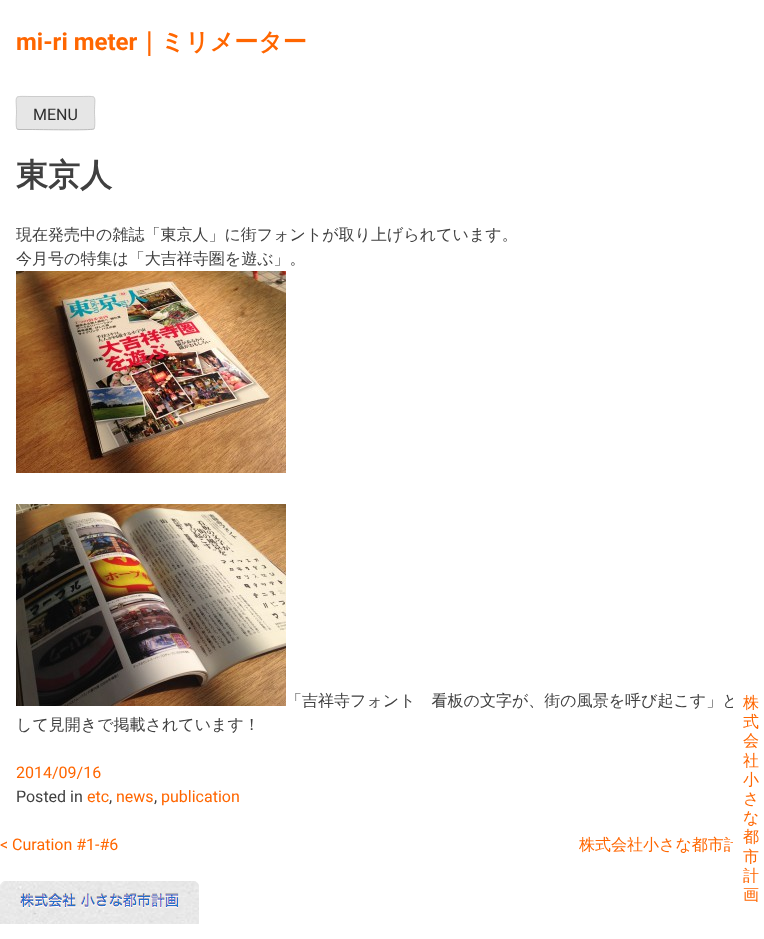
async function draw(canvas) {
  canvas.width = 764;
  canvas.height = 939;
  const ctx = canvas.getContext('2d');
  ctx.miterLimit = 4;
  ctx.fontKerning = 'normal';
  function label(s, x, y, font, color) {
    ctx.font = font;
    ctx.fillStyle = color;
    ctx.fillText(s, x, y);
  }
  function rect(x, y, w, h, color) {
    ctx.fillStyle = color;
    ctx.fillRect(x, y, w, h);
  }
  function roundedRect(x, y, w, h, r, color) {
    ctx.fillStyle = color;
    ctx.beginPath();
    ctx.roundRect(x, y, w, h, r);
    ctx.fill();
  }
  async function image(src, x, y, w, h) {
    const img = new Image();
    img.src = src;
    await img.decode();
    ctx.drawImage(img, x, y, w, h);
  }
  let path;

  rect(0, 0, 764, 939, '#fff');
  label('mi-ri meter', 16, 50, 'bold 24px Roboto', '#f60');
  label('｜ミリメーター', 137, 50, 'bold 24px WenQuanYi Zen Hei', '#f60');
  roundedRect(16, 96, 79, 34, 3, '#e6e6e6');
  path = new Path2D('M94 129H93.5C91.5 130.5 38 129.5 31 129.5H19L17 129');
  ctx.strokeStyle = '#bbb';
  ctx.stroke(path);
  path = new Path2D('M17 129C15.5 127 16.5 115.5 16.5 113C16.5 94 12.5 96.5 31 96.5H80C98.5 96.5 94.5 94 94.5 113C94.5 115.5 95.5 127 94 129');
  ctx.strokeStyle = '#ccc';
  ctx.stroke(path);
  label('MENU', 33, 120, '16px Roboto', '#2e2e2e');
  label('東京人', 16, 186, 'bold 32px WenQuanYi Zen Hei', '#404040');
  label('現在発売中の雑誌「東京人」に街フォントが取り上げられています。', 16, 240, '500 16px WenQuanYi Zen Hei', '#404040');
  label('今月号の特集は「大吉祥寺圏を遊ぶ」。', 16, 264, '500 16px WenQuanYi Zen Hei', '#404040');
  await image('assets/img1.png', 16, 271, 270, 202);
  await image('assets/img2.png', 16, 504, 270, 202);
  label('「吉祥寺フォント　看板の文字が、街の風景を呼び起こす」と', 286, 706, '500 16px WenQuanYi Zen Hei', '#404040');
  label('して見開きで掲載されています！', 16, 730, '500 16px WenQuanYi Zen Hei', '#404040');
  label('2014/09/16', 16, 778, '16px Roboto', '#f60');
  label('Posted in', 16, 802, '16px Roboto', '#404040');
  label('etc', 87, 802, '16px Roboto', '#f60');
  label(',', 109, 802, '16px Roboto', '#404040');
  label('news', 116, 802, '16px Roboto', '#f60');
  label(',', 154, 802, '16px Roboto', '#404040');
  label('publication', 161, 802, '16px Roboto', '#f60');
  label('< Curation #1-#6', 0, 850, '16px Roboto', '#f60');
  label('株式会社小さな都市計', 579, 850, '500 16px WenQuanYi Zen Hei', '#f60');
  await image('assets/img3.png', 0, 881, 199, 43);
  ctx.fillStyle = '#fff';
  path = new Path2D('M738 683H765V923H738C735 923 733 921 733 918V688C733 685 735 683 738 683Z');
  ctx.fill(path);
  label('株', 743, 708, '500 16px WenQuanYi Zen Hei', '#f60');
  label('式', 743, 727, '500 16px WenQuanYi Zen Hei', '#f60');
  label('会', 743, 746, '500 16px WenQuanYi Zen Hei', '#f60');
  label('社', 743, 766, '500 16px WenQuanYi Zen Hei', '#f60');
  label('小', 743, 785, '500 16px WenQuanYi Zen Hei', '#f60');
  label('さ', 743, 804, '500 16px WenQuanYi Zen Hei', '#f60');
  label('な', 743, 823, '500 16px WenQuanYi Zen Hei', '#f60');
  label('都', 743, 842, '500 16px WenQuanYi Zen Hei', '#f60');
  label('市', 743, 862, '500 16px WenQuanYi Zen Hei', '#f60');
  label('計', 743, 881, '500 16px WenQuanYi Zen Hei', '#f60');
  label('画', 743, 900, '500 16px WenQuanYi Zen Hei', '#f60');
}

draw(document.querySelector('canvas'));
